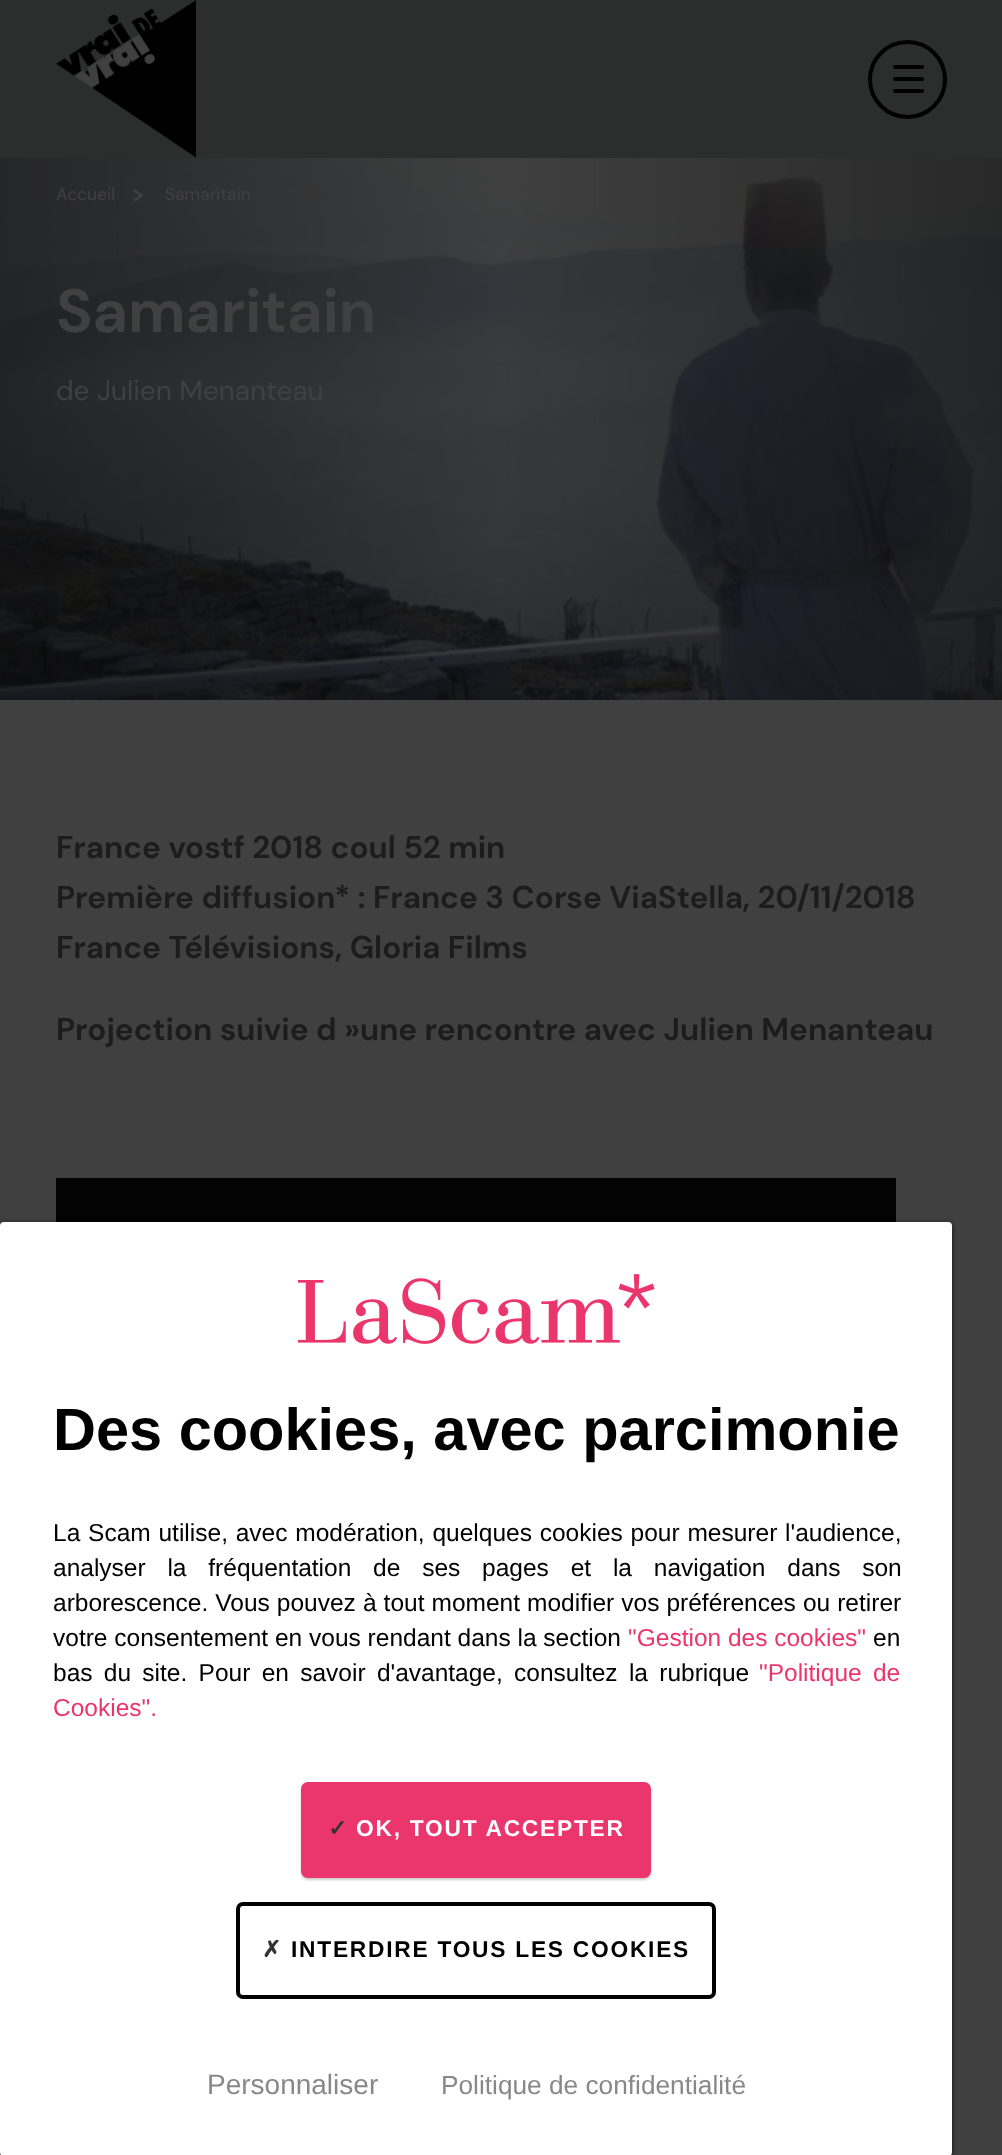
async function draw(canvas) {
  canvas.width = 1002;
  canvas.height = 2155;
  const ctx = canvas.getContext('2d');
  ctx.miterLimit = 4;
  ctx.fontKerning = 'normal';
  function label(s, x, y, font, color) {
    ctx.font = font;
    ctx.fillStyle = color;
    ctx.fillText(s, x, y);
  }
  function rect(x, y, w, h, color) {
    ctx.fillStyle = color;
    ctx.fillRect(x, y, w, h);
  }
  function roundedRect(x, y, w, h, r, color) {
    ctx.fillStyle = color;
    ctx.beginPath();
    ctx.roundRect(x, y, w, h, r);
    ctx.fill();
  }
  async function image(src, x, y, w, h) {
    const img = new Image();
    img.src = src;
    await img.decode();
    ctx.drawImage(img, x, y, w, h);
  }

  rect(0, 0, 1002, 2155, '#404040');
  rect(0, 0, 1002, 158, '#2c2e2e');
  await image('assets/img1.png', 56, 0, 140, 158);
  ctx.beginPath();
  ctx.arc(907.5, 79.5, 37.5, 0, 2 * Math.PI);
  ctx.strokeStyle = '#000';
  ctx.lineWidth = 4;
  ctx.stroke();
  roundedRect(893, 65, 31, 4, 2, '#000');
  roundedRect(893, 77, 31, 4, 2, '#000');
  roundedRect(893, 89, 31, 4, 2, '#000');
  await image('assets/img3.png', 0, 158, 1002, 542);
  label('Accueil', 56, 200, '17.5px DM Sans', '#404040');
  await image('assets/img2.png', 133, 189, 11, 12);
  label('Samaritain', 165, 200, '17.5px DM Sans', '#404040');
  label('Samaritain', 56, 332, 'bold 61.25px DM Sans', '#404040');
  label('de Julien Menanteau', 56, 400, '28px DM Sans', '#404040');
  label('France vostf 2018 coul 52 min', 56, 858, 'bold 31.5px DM Sans', '#1c1c1c');
  label('Première diffusion* : France 3 Corse ViaStella, 20/11/2018', 56, 908, 'bold 31.5px DM Sans', '#1c1c1c');
  label('France Télévisions, Gloria Films', 56, 958, 'bold 31.5px DM Sans', '#1c1c1c');
  label('Projection suivie d »une rencontre avec Julien Menanteau', 56, 1040, 'bold 31.5px DM Sans', '#1c1c1c');
  await image('assets/img4.png', 56, 1177, 840, 45);
  ctx.fillStyle = '#000000bf';
  ctx.filter = 'blur(2.5px)';
  ctx.beginPath();
  ctx.roundRect(0, 1223, 952, 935, 4);
  ctx.fill();
  ctx.filter = 'none';
  roundedRect(0, 1222, 952, 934, 4, '#fff');
  await image('assets/img5.png', 298, 1274, 357, 70);
  label('Des cookies, avec parcimonie', 53, 1450, 'bold 59.5px Liberation Sans', '#000');
  ctx.wordSpacing = '1px';
  label('La Scam utilise, avec modération, quelques cookies pour mesurer l\'audience,', 53, 1541, '24.5px Liberation Sans', '#000');
  ctx.wordSpacing = '15px';
  label('analyser la fréquentation de ses pages et la navigation dans son', 53, 1576, '24.5px Liberation Sans', '#000');
  ctx.wordSpacing = '0.25px';
  label('arborescence. Vous pouvez à tout moment modifier vos préférences ou retirer', 53, 1611, '24.5px Liberation Sans', '#000');
  ctx.wordSpacing = '0px';
  label('votre consentement en vous rendant dans la section', 53, 1646, '24.5px Liberation Sans', '#000');
  label('"Gestion des cookies"', 628, 1646, '24.5px Liberation Sans', '#eb356d');
  label('en', 873, 1646, '24.5px Liberation Sans', '#000');
  ctx.wordSpacing = '4.5px';
  label('bas du site. Pour en savoir d\'avantage, consultez la rubrique', 53, 1681, '24.5px Liberation Sans', '#000');
  label('"Politique de', 759, 1681, '24.5px Liberation Sans', '#eb356d');
  ctx.wordSpacing = '0px';
  label('Cookies".', 53, 1716, '24.5px Liberation Sans', '#eb356d');
  ctx.fillStyle = '#00000033';
  ctx.filter = 'blur(1px)';
  ctx.beginPath();
  ctx.roundRect(301, 1783, 350, 97, 7);
  ctx.fill();
  ctx.filter = 'none';
  ctx.fillStyle = '#eb356d';
  ctx.beginPath();
  ctx.roundRect(303, 1784, 346, 92, 5);
  ctx.fill();
  ctx.strokeStyle = '#eb356d';
  ctx.stroke();
  ctx.letterSpacing = '1.75px';
  label('✓', 328, 1836, 'bold 22.75px DejaVu Sans', '#333');
  label('OK, TOUT ACCEPTER', 356, 1836, 'bold 22.75px Liberation Sans', '#fff');
  ctx.beginPath();
  ctx.roundRect(238, 1904, 476, 93, 5);
  ctx.strokeStyle = '#000';
  ctx.stroke();
  label('✗', 262, 1957, 'bold 22.75px DejaVu Sans', '#333');
  label('INTERDIRE TOUS LES COOKIES', 291, 1957, 'bold 22.75px Liberation Sans', '#000');
  ctx.letterSpacing = '0px';
  label('Personnaliser', 207, 2094, '28px Liberation Sans', '#888');
  label('Politique de confidentialité', 441, 2094, '26.25px Liberation Sans', '#888');
}

draw(document.querySelector('canvas'));
